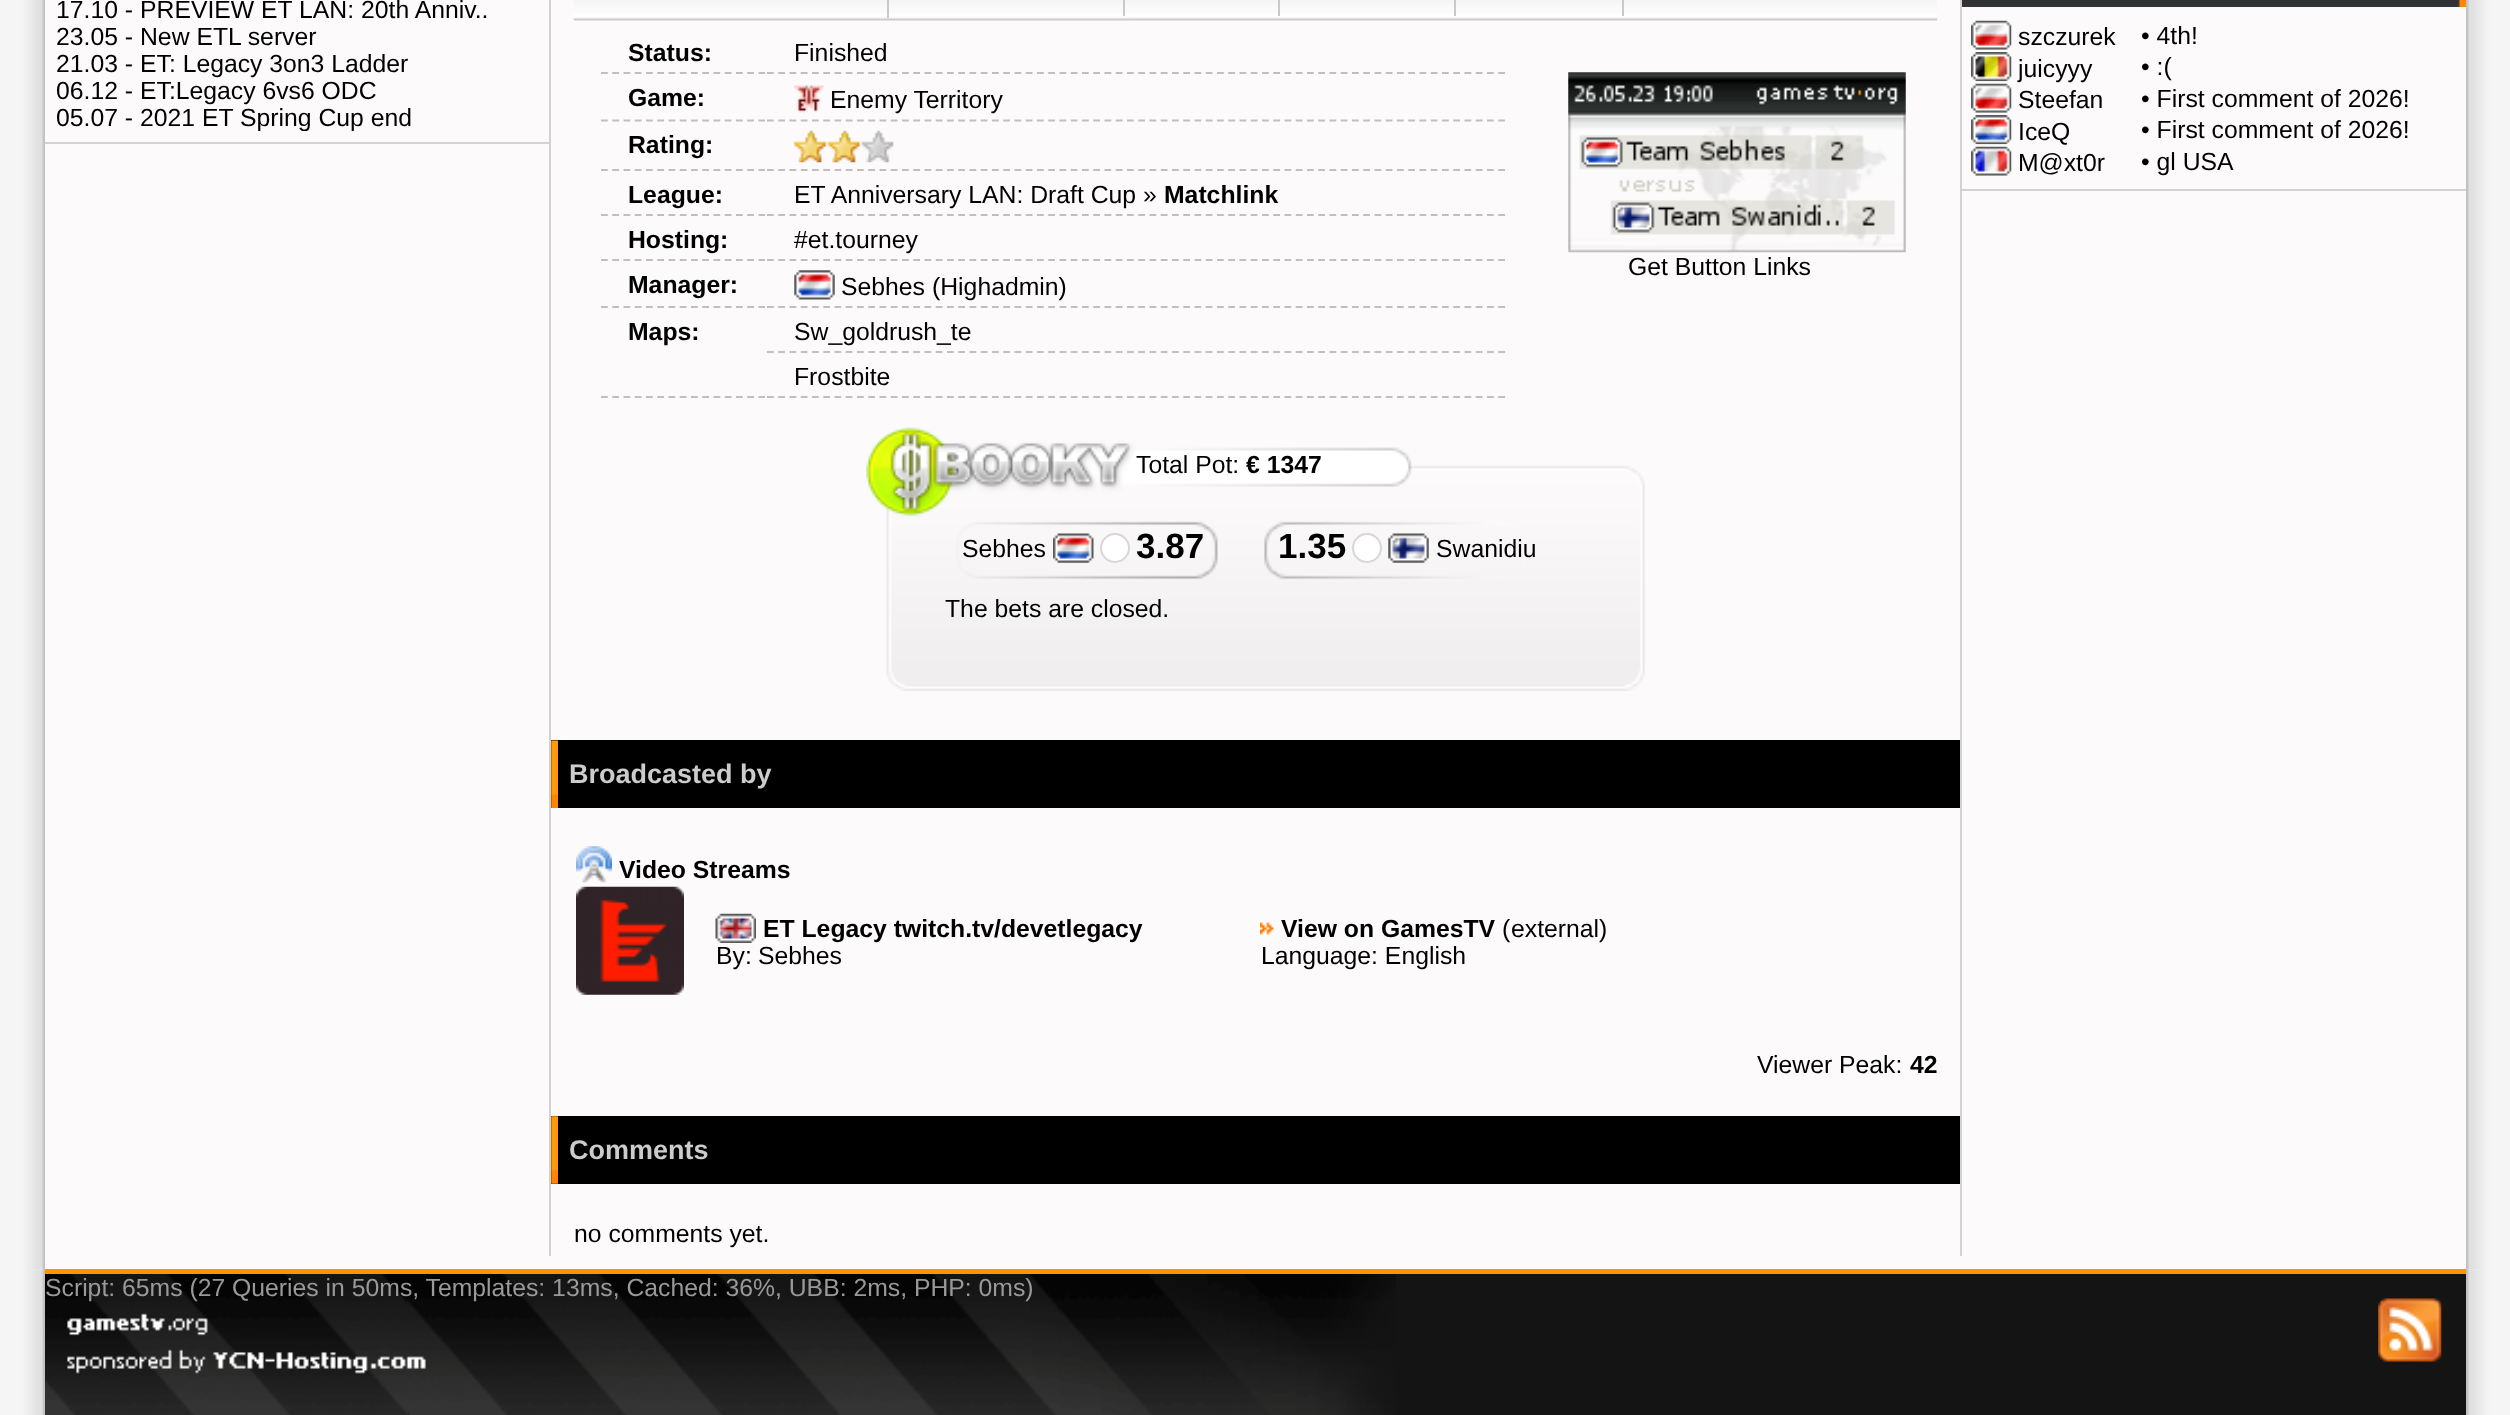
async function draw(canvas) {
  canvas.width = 2510;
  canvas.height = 1415;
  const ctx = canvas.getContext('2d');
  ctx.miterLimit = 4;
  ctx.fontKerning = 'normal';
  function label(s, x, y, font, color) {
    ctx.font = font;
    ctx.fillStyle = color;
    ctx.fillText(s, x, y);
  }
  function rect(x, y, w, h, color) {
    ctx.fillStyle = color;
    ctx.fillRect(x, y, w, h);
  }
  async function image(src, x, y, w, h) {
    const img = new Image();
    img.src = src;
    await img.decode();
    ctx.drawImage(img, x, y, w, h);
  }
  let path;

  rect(0, 0, 2510, 1415, '#fcfafb');
  await image('assets/img1.png', 0, 0, 45, 1270);
  rect(549, 0, 2, 1256, '#d2d2d2');
  rect(45, 142, 506, 2, '#d2d2d2');
  label('17.10 -', 56, 18, '24.75px Liberation Sans', '#000');
  label('PREVIEW ET LAN: 20th Anniv..', 140, 18, '24.75px Liberation Sans', '#000');
  label('23.05 -', 56, 45, '24.75px Liberation Sans', '#000');
  label('New ETL server', 140, 45, '24.75px Liberation Sans', '#000');
  label('21.03 -', 56, 72, '24.75px Liberation Sans', '#000');
  label('ET: Legacy 3on3 Ladder', 140, 72, '24.75px Liberation Sans', '#000');
  label('06.12 -', 56, 99, '24.75px Liberation Sans', '#000');
  label('ET:Legacy 6vs6 ODC', 140, 99, '24.75px Liberation Sans', '#000');
  label('05.07 -', 56, 126, '24.75px Liberation Sans', '#000');
  ctx.save();
  ctx.beginPath();
  ctx.rect(45, 0, 504, 131);
  ctx.clip();
  label('2021 ET Spring Cup end', 140, 126, '24.75px Liberation Sans', '#000');
  ctx.restore();
  rect(1960, 0, 2, 1256, '#d2d2d2');
  await image('assets/img2.png', 573, 0, 1365, 21);
  rect(1123, 0, 2, 18, '#c9c9c9');
  rect(887, 16, 238, 2, '#fcfafb');
  rect(887, 0, 2, 18, '#c9c9c9');
  rect(1278, 0, 2, 16, '#c9c9c9');
  rect(1454, 0, 2, 16, '#c9c9c9');
  rect(1622, 0, 2, 16, '#c9c9c9');
  path = new Path2D('M601 73H765');
  ctx.strokeStyle = '#bfbfbf';
  ctx.lineWidth = 2.2;
  ctx.setLineDash([6.75, 4.5]);
  ctx.stroke(path);
  label('Status:', 628, 61, 'bold 24.75px Liberation Sans', '#000');
  path = new Path2D('M767 73H1505');
  ctx.stroke(path);
  label('Finished', 794, 61, '24.75px Liberation Sans', '#000');
  await image('assets/img3.png', 1568, 72, 338, 181);
  label('Get Button Links', 1628, 275, '24.75px Liberation Sans', '#000');
  path = new Path2D('M601 120.5H765');
  ctx.stroke(path);
  label('Game:', 628, 106, 'bold 24.75px Liberation Sans', '#000');
  path = new Path2D('M767 120.5H1505');
  ctx.stroke(path);
  await image('assets/img4.png', 794, 85, 30, 28);
  label('Enemy Territory', 830, 108, '24.75px Liberation Sans', '#000');
  path = new Path2D('M601 170H765');
  ctx.stroke(path);
  label('Rating:', 628, 153, 'bold 24.75px Liberation Sans', '#000');
  path = new Path2D('M767 170H1505');
  ctx.stroke(path);
  await image('assets/img5.png', 794, 130, 100, 33);
  path = new Path2D('M601 215H765');
  ctx.stroke(path);
  label('League:', 628, 203, 'bold 24.75px Liberation Sans', '#000');
  path = new Path2D('M767 215H1505');
  ctx.stroke(path);
  label('ET Anniversary LAN: Draft Cup', 794, 203, '24.75px Liberation Sans', '#000');
  label('»', 1143, 203, '24.75px Liberation Sans', '#000');
  label('Matchlink', 1164, 203, 'bold 24.75px Liberation Sans', '#000');
  path = new Path2D('M601 260H765');
  ctx.stroke(path);
  label('Hosting:', 628, 248, 'bold 24.75px Liberation Sans', '#000');
  path = new Path2D('M767 260H1505');
  ctx.stroke(path);
  label('#et.tourney', 794, 248, '24.75px Liberation Sans', '#000');
  path = new Path2D('M601 307H765');
  ctx.stroke(path);
  label('Manager:', 628, 293, 'bold 24.75px Liberation Sans', '#000');
  path = new Path2D('M767 307H1505');
  ctx.stroke(path);
  await image('assets/img6.png', 794, 270, 41, 30);
  label('Sebhes', 841, 295, '24.75px Liberation Sans', '#000');
  label('(Highadmin)', 932, 295, '24.75px Liberation Sans', '#000');
  path = new Path2D('M601 397H765');
  ctx.stroke(path);
  label('Maps:', 628, 340, 'bold 24.75px Liberation Sans', '#000');
  path = new Path2D('M767 352H1505');
  ctx.stroke(path);
  label('Sw_goldrush_te', 794, 340, '24.75px Liberation Sans', '#000');
  path = new Path2D('M767 397H1505');
  ctx.stroke(path);
  label('Frostbite', 794, 385, '24.75px Liberation Sans', '#000');
  await image('assets/img7.png', 866, 427, 779, 264);
  label('Total Pot:', 1136, 473, '24.75px Liberation Sans', '#000');
  label('€ 1347', 1246, 473, 'bold 24.75px Liberation Sans', '#000');
  label('Sebhes', 962, 557, '24.75px Liberation Sans', '#000');
  await image('assets/img8.png', 1053, 533, 41, 30);
  ctx.fillStyle = '#fff';
  ctx.beginPath();
  ctx.arc(1115, 548, 15, 0, 2 * Math.PI);
  ctx.fill();
  ctx.beginPath();
  ctx.arc(1115, 548, 14, 0, 2 * Math.PI);
  ctx.strokeStyle = '#7676764d';
  ctx.lineWidth = 2;
  ctx.setLineDash([]);
  ctx.stroke();
  label('3.87', 1136, 558, 'bold 35px Liberation Sans', '#000');
  label('1.35', 1278, 558, 'bold 35px Liberation Sans', '#000');
  ctx.fillStyle = '#fff';
  ctx.beginPath();
  ctx.arc(1367, 548, 15, 0, 2 * Math.PI);
  ctx.fill();
  ctx.beginPath();
  ctx.arc(1367, 548, 14, 0, 2 * Math.PI);
  ctx.stroke();
  await image('assets/img9.png', 1388, 533, 41, 30);
  label('Swanidiu', 1436, 557, '24.75px Liberation Sans', '#000');
  label('The bets are closed.', 945, 617, '24.75px Liberation Sans', '#000');
  rect(551, 740, 1409, 68, '#000');
  await image('assets/img10.png', 551, 740, 7, 68);
  label('Broadcasted by', 569, 783, 'bold 27px Liberation Sans', '#ccc');
  await image('assets/img11.png', 576, 846, 36, 37);
  label('Video Streams', 619, 878, 'bold 24.75px Liberation Sans', '#000');
  await image('assets/img12.png', 576, 886, 108, 109);
  await image('assets/img13.png', 715, 913, 41, 30);
  label('ET Legacy twitch.tv/devetlegacy', 763, 937, 'bold 24.75px Liberation Sans', '#000');
  label('By:', 716, 964, '24.75px Liberation Sans', '#000');
  label('Sebhes', 758, 964, '24.75px Liberation Sans', '#000');
  await image('assets/img14.png', 1260, 922, 14, 13);
  label('View on GamesTV', 1281, 937, 'bold 24.75px Liberation Sans', '#000');
  label('(', 1502, 937, '24.75px Liberation Sans', '#000');
  label('external', 1511, 937, '24.75px Liberation Sans', '#000');
  label(')', 1599, 937, '24.75px Liberation Sans', '#000');
  label('Language: English', 1261, 964, '24.75px Liberation Sans', '#000');
  label('Viewer Peak:', 1757, 1073, '24.75px Liberation Sans', '#000');
  label('42', 1910, 1073, 'bold 24.75px Liberation Sans', '#000');
  rect(551, 1116, 1409, 68, '#000');
  await image('assets/img15.png', 551, 1116, 7, 68);
  label('Comments', 569, 1159, 'bold 27px Liberation Sans', '#ccc');
  label('no comments yet.', 574, 1242, '24.75px Liberation Sans', '#000');
  rect(1960, 189, 506, 2, '#d2d2d2');
  await image('assets/img16.png', 1962, 0, 504, 7);
  await image('assets/img17.png', 1971, 20, 41, 30);
  label('szczurek', 2018, 45, '24.75px Liberation Sans', '#000');
  label('• 4th!', 2141, 44, '24.75px Liberation Sans', '#000');
  await image('assets/img18.png', 1971, 52, 41, 30);
  label('juicyyy', 2018, 77, '24.75px Liberation Sans', '#000');
  label('• :(', 2141, 75, '24.75px Liberation Sans', '#000');
  await image('assets/img17.png', 1971, 83, 41, 30);
  label('Steefan', 2018, 108, '24.75px Liberation Sans', '#000');
  label('• First comment of 2026!', 2141, 107, '24.75px Liberation Sans', '#000');
  await image('assets/img19.png', 1971, 115, 41, 30);
  label('IceQ', 2018, 140, '24.75px Liberation Sans', '#000');
  label('• First comment of 2026!', 2141, 138, '24.75px Liberation Sans', '#000');
  await image('assets/img20.png', 1971, 146, 41, 30);
  label('M@xt0r', 2018, 171, '24.75px Liberation Sans', '#000');
  label('• gl USA', 2141, 170, '24.75px Liberation Sans', '#000');
  await image('assets/img21.png', 2466, 0, 44, 1270);
  await image('assets/img22.png', 0, 1269, 45, 146);
  rect(1396, 1274, 1070, 141, '#141414');
  await image('assets/img23.png', 45, 1274, 1351, 141);
  rect(45, 1269, 2421, 5, '#ff9501');
  label('Script: 65ms (27 Queries in 50ms, Templates: 13ms, Cached: 36%, UBB: 2ms, PHP: 0ms)', 45, 1296, '24.75px Liberation Sans', '#999');
  await image('assets/img24.png', 2378, 1298, 64, 64);
  await image('assets/img25.png', 2466, 1269, 44, 146);
}

draw(document.querySelector('canvas'));
